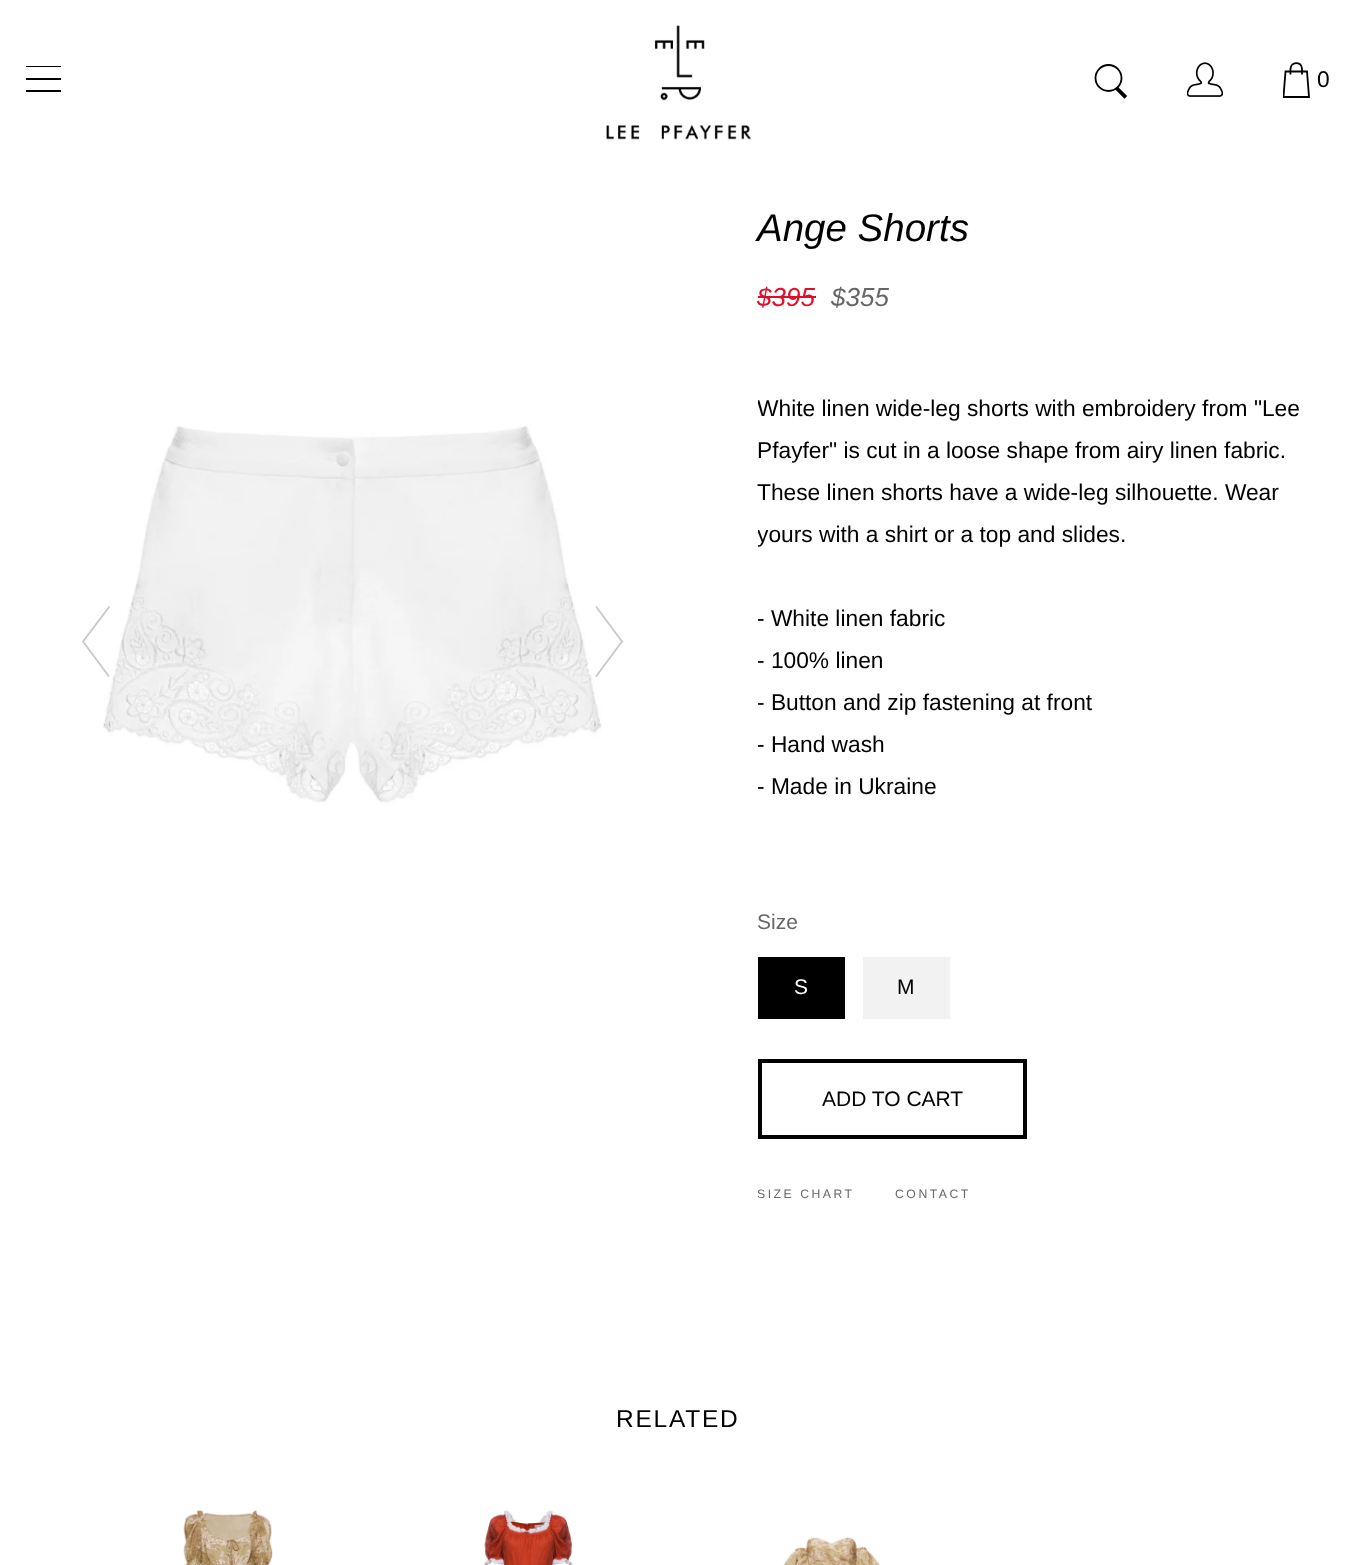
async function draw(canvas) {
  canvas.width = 1355;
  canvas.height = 1565;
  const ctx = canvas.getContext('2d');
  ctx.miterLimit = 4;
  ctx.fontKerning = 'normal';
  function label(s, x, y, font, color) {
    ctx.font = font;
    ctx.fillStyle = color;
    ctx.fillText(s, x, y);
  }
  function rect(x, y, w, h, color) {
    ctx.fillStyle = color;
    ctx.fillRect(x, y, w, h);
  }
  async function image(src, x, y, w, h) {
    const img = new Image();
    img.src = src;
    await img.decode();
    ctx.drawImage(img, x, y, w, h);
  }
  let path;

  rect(0, 0, 1355, 1565, '#fff');
  rect(26, 66, 35, 1, '#000');
  rect(26, 78, 35, 2, '#000');
  rect(26, 90, 35, 2, '#000');
  await image('assets/img1.png', 606, 25, 146, 115);
  ctx.beginPath();
  ctx.arc(1108.5, 78, 13, 0, 2 * Math.PI);
  ctx.strokeStyle = '#000';
  ctx.lineWidth = 1.8;
  ctx.stroke();
  path = new Path2D('M1118 88.5L1125.5 96L1124.5 97L1117 89.5Z');
  ctx.lineWidth = 2.4;
  ctx.stroke(path);
  await image('assets/img2.png', 1187, 62, 36, 35);
  ctx.save();
  ctx.beginPath();
  ctx.rect(1283, 61, 28, 37);
  ctx.clip();
  path = new Path2D('M1285.5 71.5L1283.5 97H1309L1307 71.5Z');
  ctx.lineWidth = 1.8;
  ctx.stroke(path);
  ctx.restore();
  path = new Path2D('M1302 74.5C1302 72 1302.5 69 1301.5 66.5C1300 62 1293 62 1291 66.5C1290 69 1290.5 72 1290.5 74.5');
  ctx.lineWidth = 1.8;
  ctx.stroke(path);
  label('0', 1317, 87, '22.75px Liberation Sans', '#000');
  await image('assets/img3.png', 103, 426, 499, 377);
  path = new Path2D('M109.5 606.5L83 641.5L109 676.5');
  ctx.strokeStyle = '#c8c8c8';
  ctx.stroke(path);
  path = new Path2D('M596 606.5L622 641.5L596 676.5');
  ctx.stroke(path);
  label('Ange Shorts', 757, 241, 'italic 38.5px Liberation Sans', '#000');
  label('$395', 757, 306, 'italic 26px Liberation Sans', '#e00f29');
  rect(758, 296, 58, 2, '#e00f29');
  label('$355', 831, 306, 'italic 26px Liberation Sans', '#666');
  ctx.save();
  ctx.beginPath();
  ctx.rect(758, 389, 546, 446);
  ctx.clip();
  label('White linen wide-leg shorts with embroidery from "Lee', 757, 416, '22.75px Liberation Sans', '#000');
  ctx.restore();
  label('Pfayfer" is cut in a loose shape from airy linen fabric.', 757, 458, '22.75px Liberation Sans', '#000');
  label('These linen shorts have a wide-leg silhouette. Wear', 757, 500, '22.75px Liberation Sans', '#000');
  ctx.save();
  ctx.beginPath();
  ctx.rect(758, 389, 546, 446);
  ctx.clip();
  label('yours with a shirt or a top and slides.', 757, 542, '22.75px Liberation Sans', '#000');
  ctx.restore();
  label('- White linen fabric', 757, 626, '22.75px Liberation Sans', '#000');
  label('- 100% linen', 757, 668, '22.75px Liberation Sans', '#000');
  label('- Button and zip fastening at front', 757, 710, '22.75px Liberation Sans', '#000');
  label('- Hand wash', 757, 752, '22.75px Liberation Sans', '#000');
  label('- Made in Ukraine', 757, 794, '22.75px Liberation Sans', '#000');
  label('Size', 757, 929, '21px Liberation Sans', '#666');
  rect(758, 957, 87, 62, '#000');
  label('S', 794, 994, '21px Liberation Sans', '#fff');
  rect(863, 957, 87, 62, '#f2f2f2');
  label('M', 897, 994, '21px Liberation Sans', '#000');
  ctx.strokeStyle = '#000';
  ctx.lineWidth = 4;
  ctx.strokeRect(760, 1061, 265, 76);
  label('ADD TO CART', 822, 1106, '21px Liberation Sans', '#000');
  ctx.letterSpacing = '2.5px';
  label('SIZE CHART', 757, 1198, '12.25px Liberation Sans', '#666');
  label('CONTACT', 895, 1198, '12.25px Liberation Sans', '#666');
  ctx.letterSpacing = '1.75px';
  label('RELATED', 616, 1427, '24.5px Liberation Sans', '#000');
  await image('assets/img4.png', 183, 1510, 90, 55);
  await image('assets/img5.png', 483, 1510, 90, 55);
  await image('assets/img6.png', 783, 1537, 97, 28);
}

draw(document.querySelector('canvas'));
